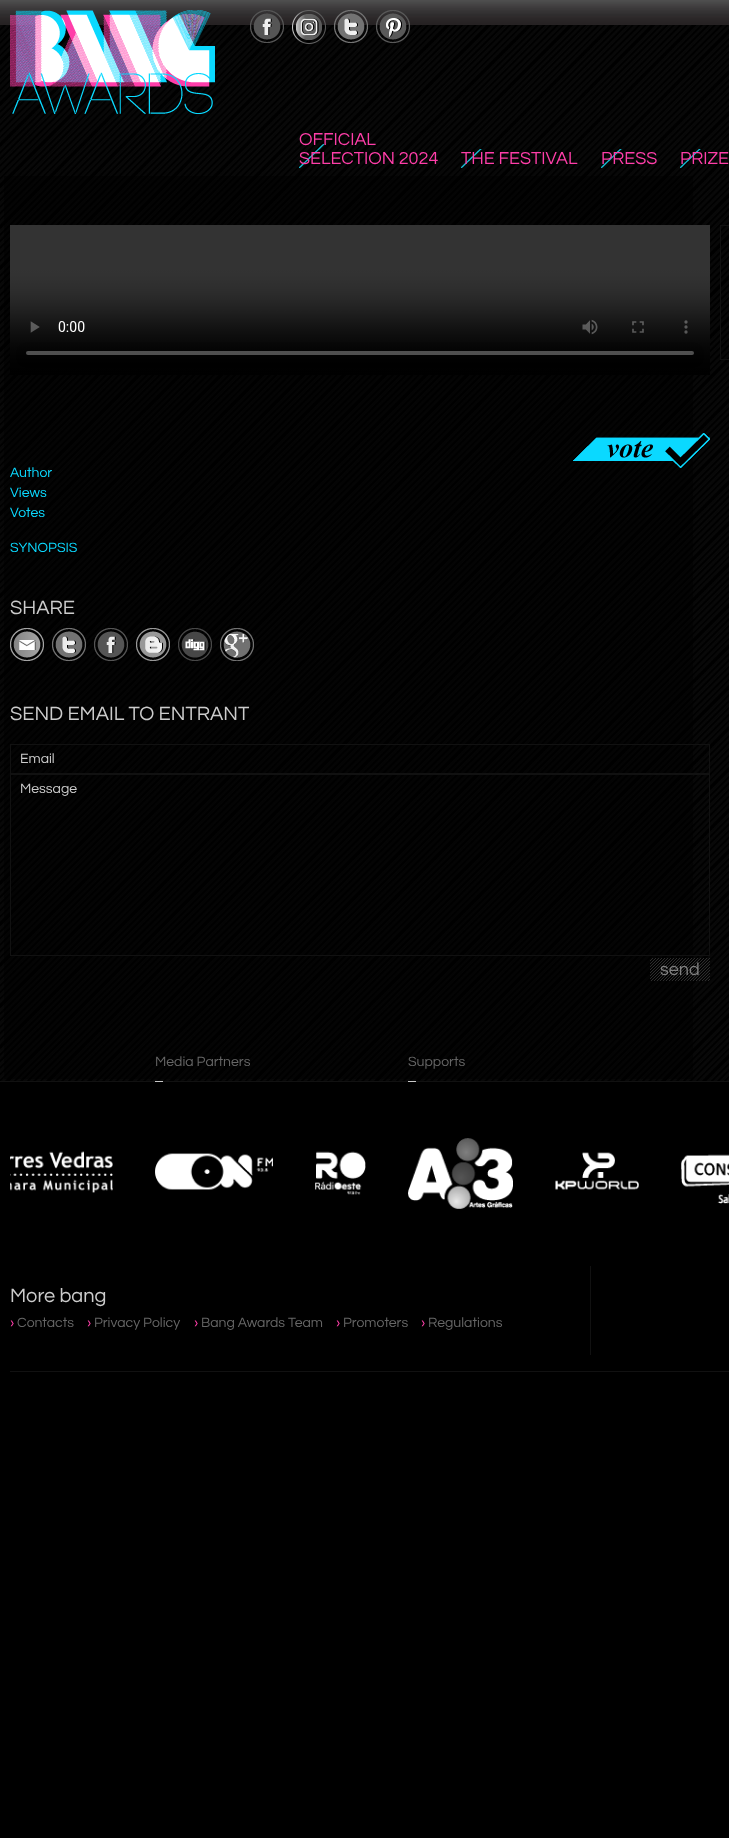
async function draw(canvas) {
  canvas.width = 729;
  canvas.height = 1838;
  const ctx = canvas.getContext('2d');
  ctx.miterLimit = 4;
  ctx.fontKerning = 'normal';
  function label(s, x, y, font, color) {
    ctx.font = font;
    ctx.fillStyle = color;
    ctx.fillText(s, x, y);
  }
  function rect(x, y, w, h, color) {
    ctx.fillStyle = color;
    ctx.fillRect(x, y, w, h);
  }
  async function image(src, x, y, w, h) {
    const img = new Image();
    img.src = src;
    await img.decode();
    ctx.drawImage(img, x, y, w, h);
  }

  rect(0, 0, 729, 1838, '#000');
  await image('assets/img1.png', 0, 25, 729, 1056);
  await image('assets/img2.png', 0, 0, 729, 25);
  await image('assets/img3.png', 10, 10, 205, 104);
  await image('assets/img4.png', 250, 10, 34, 33);
  await image('assets/img5.png', 292, 10, 34, 34);
  await image('assets/img6.png', 334, 10, 34, 33);
  await image('assets/img7.png', 376, 10, 34, 33);
  await image('assets/img8.png', 299, 144, 25, 24);
  label('OFFICIAL', 299, 145, '18px Questrial', '#ff3ea9');
  label('SELECTION 2024', 299, 164, '18px Questrial', '#ff3ea9');
  await image('assets/img9.png', 461, 149, 21, 19);
  label('THE FESTIVAL', 461, 164, '18px Questrial', '#ff3ea9');
  await image('assets/img10.png', 601, 149, 21, 19);
  label('PRESS', 601, 164, '18px Questrial', '#ff3ea9');
  await image('assets/img11.png', 680, 149, 21, 19);
  label('PRIZE', 680, 164, '18px Questrial', '#ff3ea9');
  rect(4, 176, 689, 903, '#0000006b');
  ctx.strokeStyle = '#111';
  ctx.strokeRect(720.5, 225.5, 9, 134);
  await image('assets/img12.png', 10, 225, 700, 150);
  await image('assets/img13.png', 573, 433, 137, 35);
  label('Author', 10, 477, '14px Questrial', '#0bd9ff');
  label('Views', 10, 497, '14px Questrial', '#0bd9ff');
  label('Votes', 10, 517, '14px Questrial', '#0bd9ff');
  label('SYNOPSIS', 10, 552, '14px Questrial', '#0bd9ff');
  label('SHARE', 10, 614, '20px Questrial', '#ccc');
  await image('assets/img14.png', 10, 628, 34, 33);
  await image('assets/img15.png', 52, 628, 34, 33);
  await image('assets/img16.png', 94, 628, 34, 33);
  await image('assets/img17.png', 136, 628, 34, 33);
  await image('assets/img18.png', 178, 628, 34, 33);
  await image('assets/img19.png', 220, 628, 34, 33);
  label('SEND EMAIL TO ENTRANT', 10, 720, '20px Questrial', '#ccc');
  ctx.strokeRect(10.5, 744.5, 699, 29);
  label('Email', 20, 763, '14px Questrial', '#ccc');
  ctx.strokeRect(10.5, 774.5, 699, 181);
  label('Message', 20, 793, '14px Questrial', '#ccc');
  await image('assets/img20.png', 650, 958, 60, 23);
  label('send', 660, 975, '18px Questrial', '#808080');
  rect(0, 1081, 729, 1, '#111');
  label('Media Partners', 155, 1066, '14px Questrial', '#666');
  rect(155, 1081, 8, 1, '#c8c8c8');
  await image('assets/img21.png', 155, 1153, 118, 37);
  label('Supports', 408, 1066, '14px Questrial', '#666');
  rect(408, 1081, 8, 1, '#c8c8c8');
  await image('assets/img22.png', 408, 1138, 105, 71);
  await image('assets/img23.png', 10, 1151, 103, 42);
  await image('assets/img24.png', 315, 1151, 51, 44);
  await image('assets/img25.png', 555, 1152, 84, 38);
  await image('assets/img26.png', 681, 1154, 48, 50);
  rect(10, 1371, 719, 1, '#111');
  rect(590, 1266, 1, 89, '#111');
  label('More bang', 10, 1302, '20px Questrial', '#ccc');
  label('›', 10, 1327, '14px Questrial', '#ff3ea9');
  label('Contacts', 17, 1327, '14px Questrial', '#666');
  label('›', 87, 1327, '14px Questrial', '#ff3ea9');
  label('Privacy Policy', 94, 1327, '14px Questrial', '#666');
  label('›', 194, 1327, '14px Questrial', '#ff3ea9');
  label('Bang Awards Team', 201, 1327, '14px Questrial', '#666');
  label('›', 336, 1327, '14px Questrial', '#ff3ea9');
  label('Promoters', 343, 1327, '14px Questrial', '#666');
  label('›', 421, 1327, '14px Questrial', '#ff3ea9');
  label('Regulations', 428, 1327, '14px Questrial', '#666');
}

draw(document.querySelector('canvas'));
